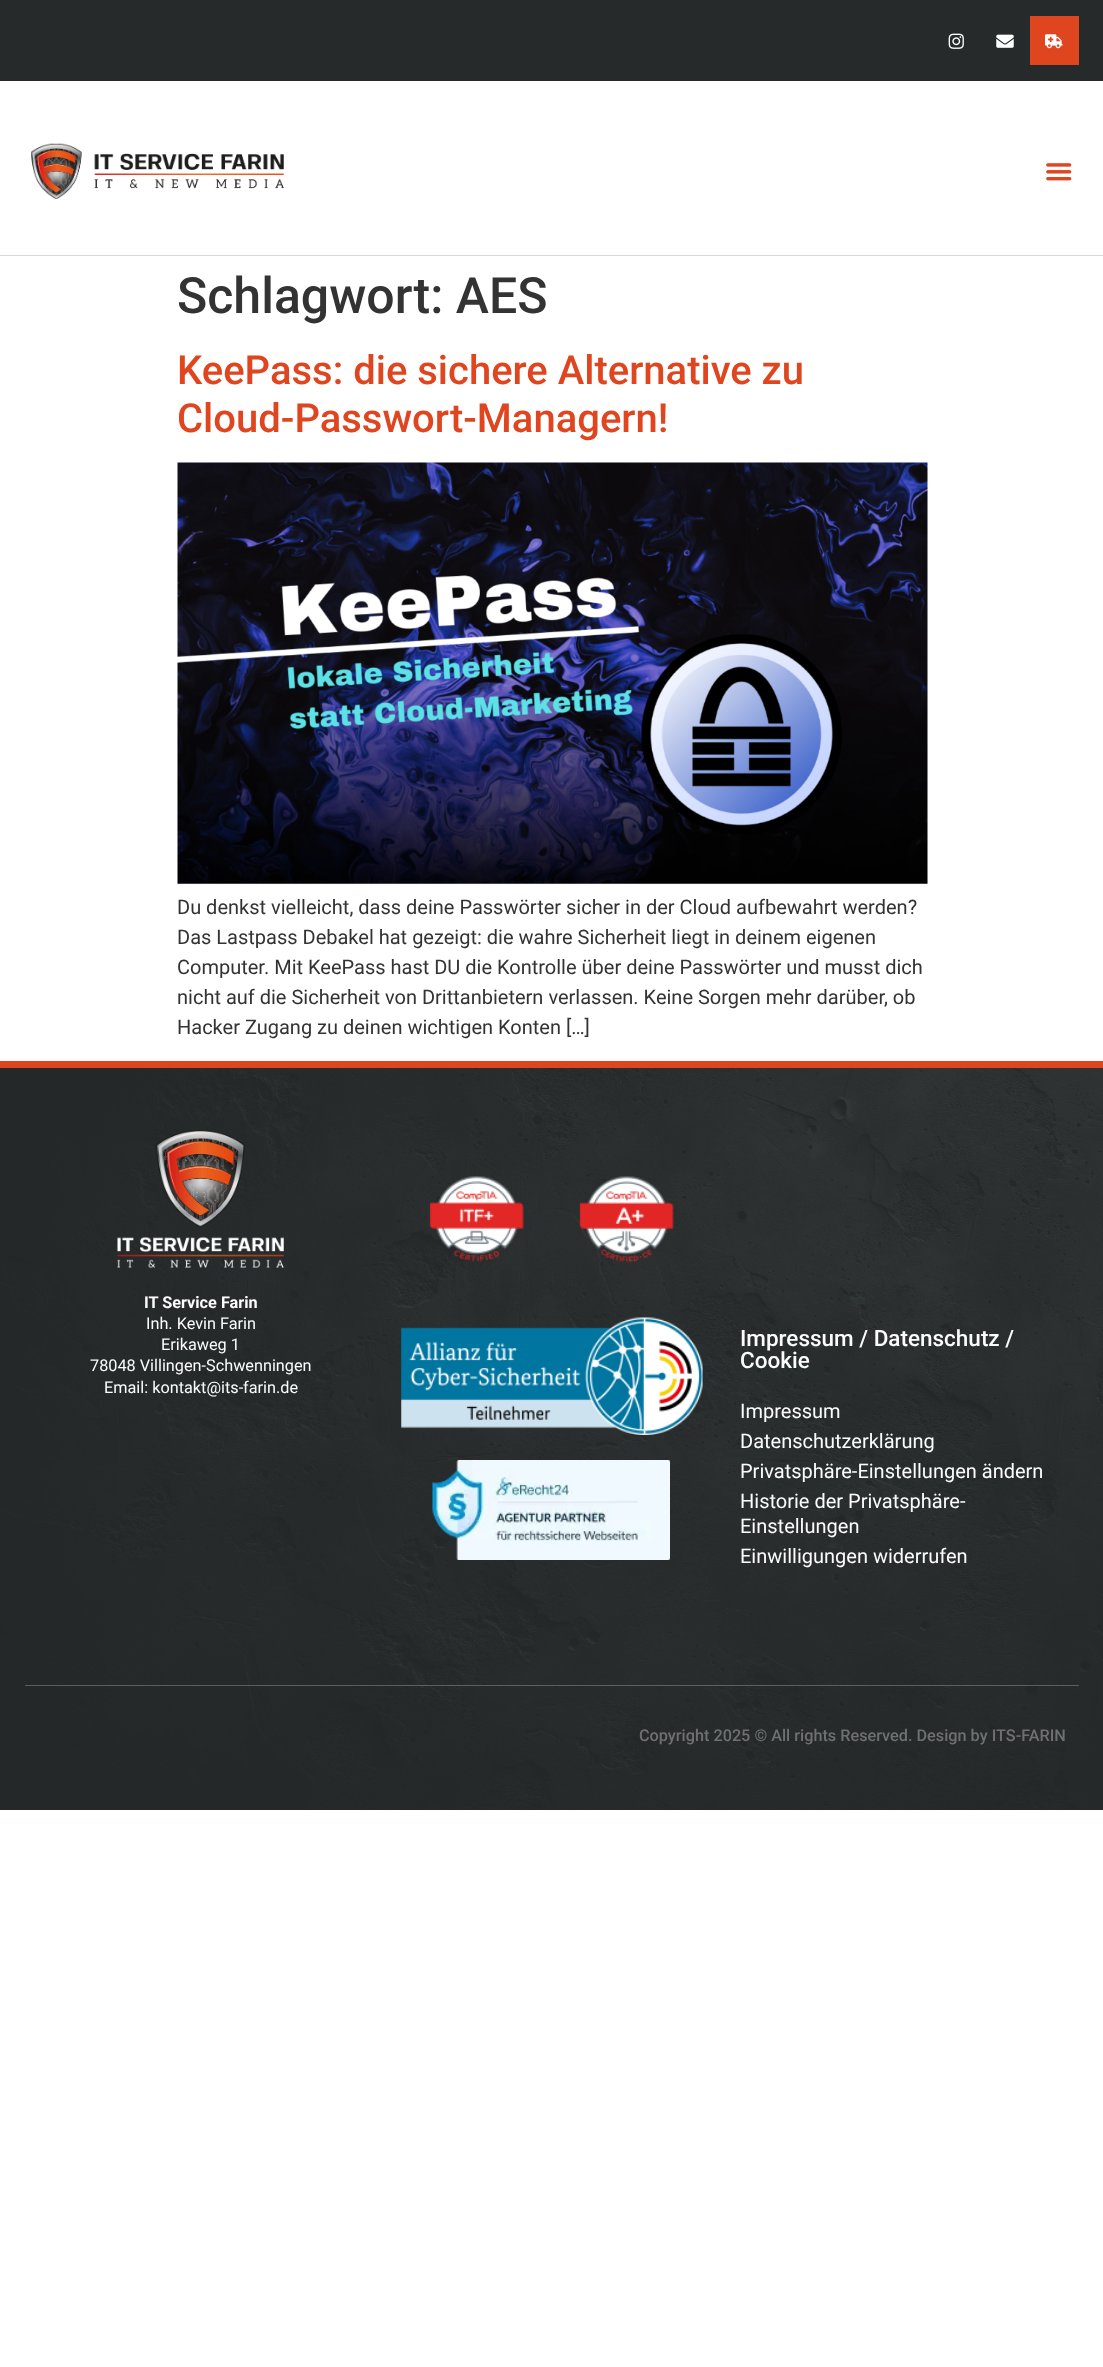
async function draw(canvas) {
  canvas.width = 1103;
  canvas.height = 2367;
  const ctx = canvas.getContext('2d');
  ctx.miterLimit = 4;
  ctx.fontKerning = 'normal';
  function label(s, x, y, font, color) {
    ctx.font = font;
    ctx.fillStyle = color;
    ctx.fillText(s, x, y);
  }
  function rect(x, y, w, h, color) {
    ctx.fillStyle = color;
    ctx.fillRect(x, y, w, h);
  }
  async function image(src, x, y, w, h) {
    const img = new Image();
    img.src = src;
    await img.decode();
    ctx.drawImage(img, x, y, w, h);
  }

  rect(0, 0, 1103, 2367, '#fff');
  rect(0, 0, 1103, 81, '#262a2b');
  await image('assets/img1.png', 948, 33, 16, 16);
  await image('assets/img2.png', 996, 34, 18, 14);
  rect(1030, 16, 49, 49, '#df451e');
  await image('assets/img3.png', 1045, 34, 18, 15);
  rect(0, 255, 1103, 1, '#d8d8d8');
  await image('assets/img4.png', 31, 143, 253, 56);
  await image('assets/img5.png', 1046, 163, 26, 18);
  label('Schlagwort: AES', 177, 313, '500 50px Roboto', '#333');
  label('KeePass: die sichere Alternative zu', 177, 384, '500 40px Roboto', '#df451e');
  label('Cloud-Passwort-Managern!', 177, 432, '500 40px Roboto', '#df451e');
  await image('assets/img6.png', 177, 462, 751, 422);
  label('Du denkst vielleicht, dass deine Passwörter sicher in der Cloud aufbewahrt werden?', 177, 914, '20px Roboto', '#333');
  label('Das Lastpass Debakel hat gezeigt: die wahre Sicherheit liegt in deinem eigenen', 177, 944, '20px Roboto', '#333');
  label('Computer. Mit KeePass hast DU die Kontrolle über deine Passwörter und musst dich', 177, 974, '20px Roboto', '#333');
  label('nicht auf die Sicherheit von Drittanbietern verlassen. Keine Sorgen mehr darüber, ob', 177, 1004, '20px Roboto', '#333');
  label('Hacker Zugang zu deinen wichtigen Konten […]', 177, 1034, '20px Roboto', '#333');
  await image('assets/img7.png', 0, 1068, 1103, 742);
  rect(0, 1061, 1103, 7, '#df451e');
  await image('assets/img8.png', 117, 1130, 167, 138);
  label('IT Service Farin', 144, 1308, 'bold 16.25px Roboto', '#fcfcfc');
  label('Inh. Kevin Farin', 146, 1329, '16.25px Roboto', '#fcfcfc');
  label('Erikaweg 1', 161, 1350, '16.25px Roboto', '#fcfcfc');
  label('78048 Villingen-Schwenningen', 90, 1371, '16.25px Roboto', '#fcfcfc');
  label('Email: kontakt@its-farin.de', 104, 1393, '16.25px Roboto', '#fcfcfc');
  await image('assets/img9.png', 429, 1176, 95, 86);
  await image('assets/img10.png', 579, 1176, 95, 87);
  await image('assets/img11.png', 401, 1317, 302, 118);
  await image('assets/img12.png', 432, 1460, 238, 100);
  label('Impressum / Datenschutz /', 740, 1346, '500 22.5px Roboto', '#fcfcfc');
  label('Cookie', 740, 1368, '500 22.5px Roboto', '#fcfcfc');
  label('Impressum', 740, 1418, '20px Roboto', '#fcfcfc');
  label('Datenschutzerklärung', 740, 1448, '20px Roboto', '#fcfcfc');
  label('Privatsphäre-Einstellungen ändern', 740, 1478, '20px Roboto', '#fcfcfc');
  label('Historie der Privatsphäre-', 740, 1508, '20px Roboto', '#fcfcfc');
  label('Einstellungen', 740, 1533, '20px Roboto', '#fcfcfc');
  label('Einwilligungen widerrufen', 740, 1563, '20px Roboto', '#fcfcfc');
  rect(25, 1685, 1054, 1, '#ffffff40');
  label('Copyright 2025 © All rights Reserved. Design by ITS-FARIN', 639, 1741, '500 16.25px Roboto', '#707070');
}

draw(document.querySelector('canvas'));
